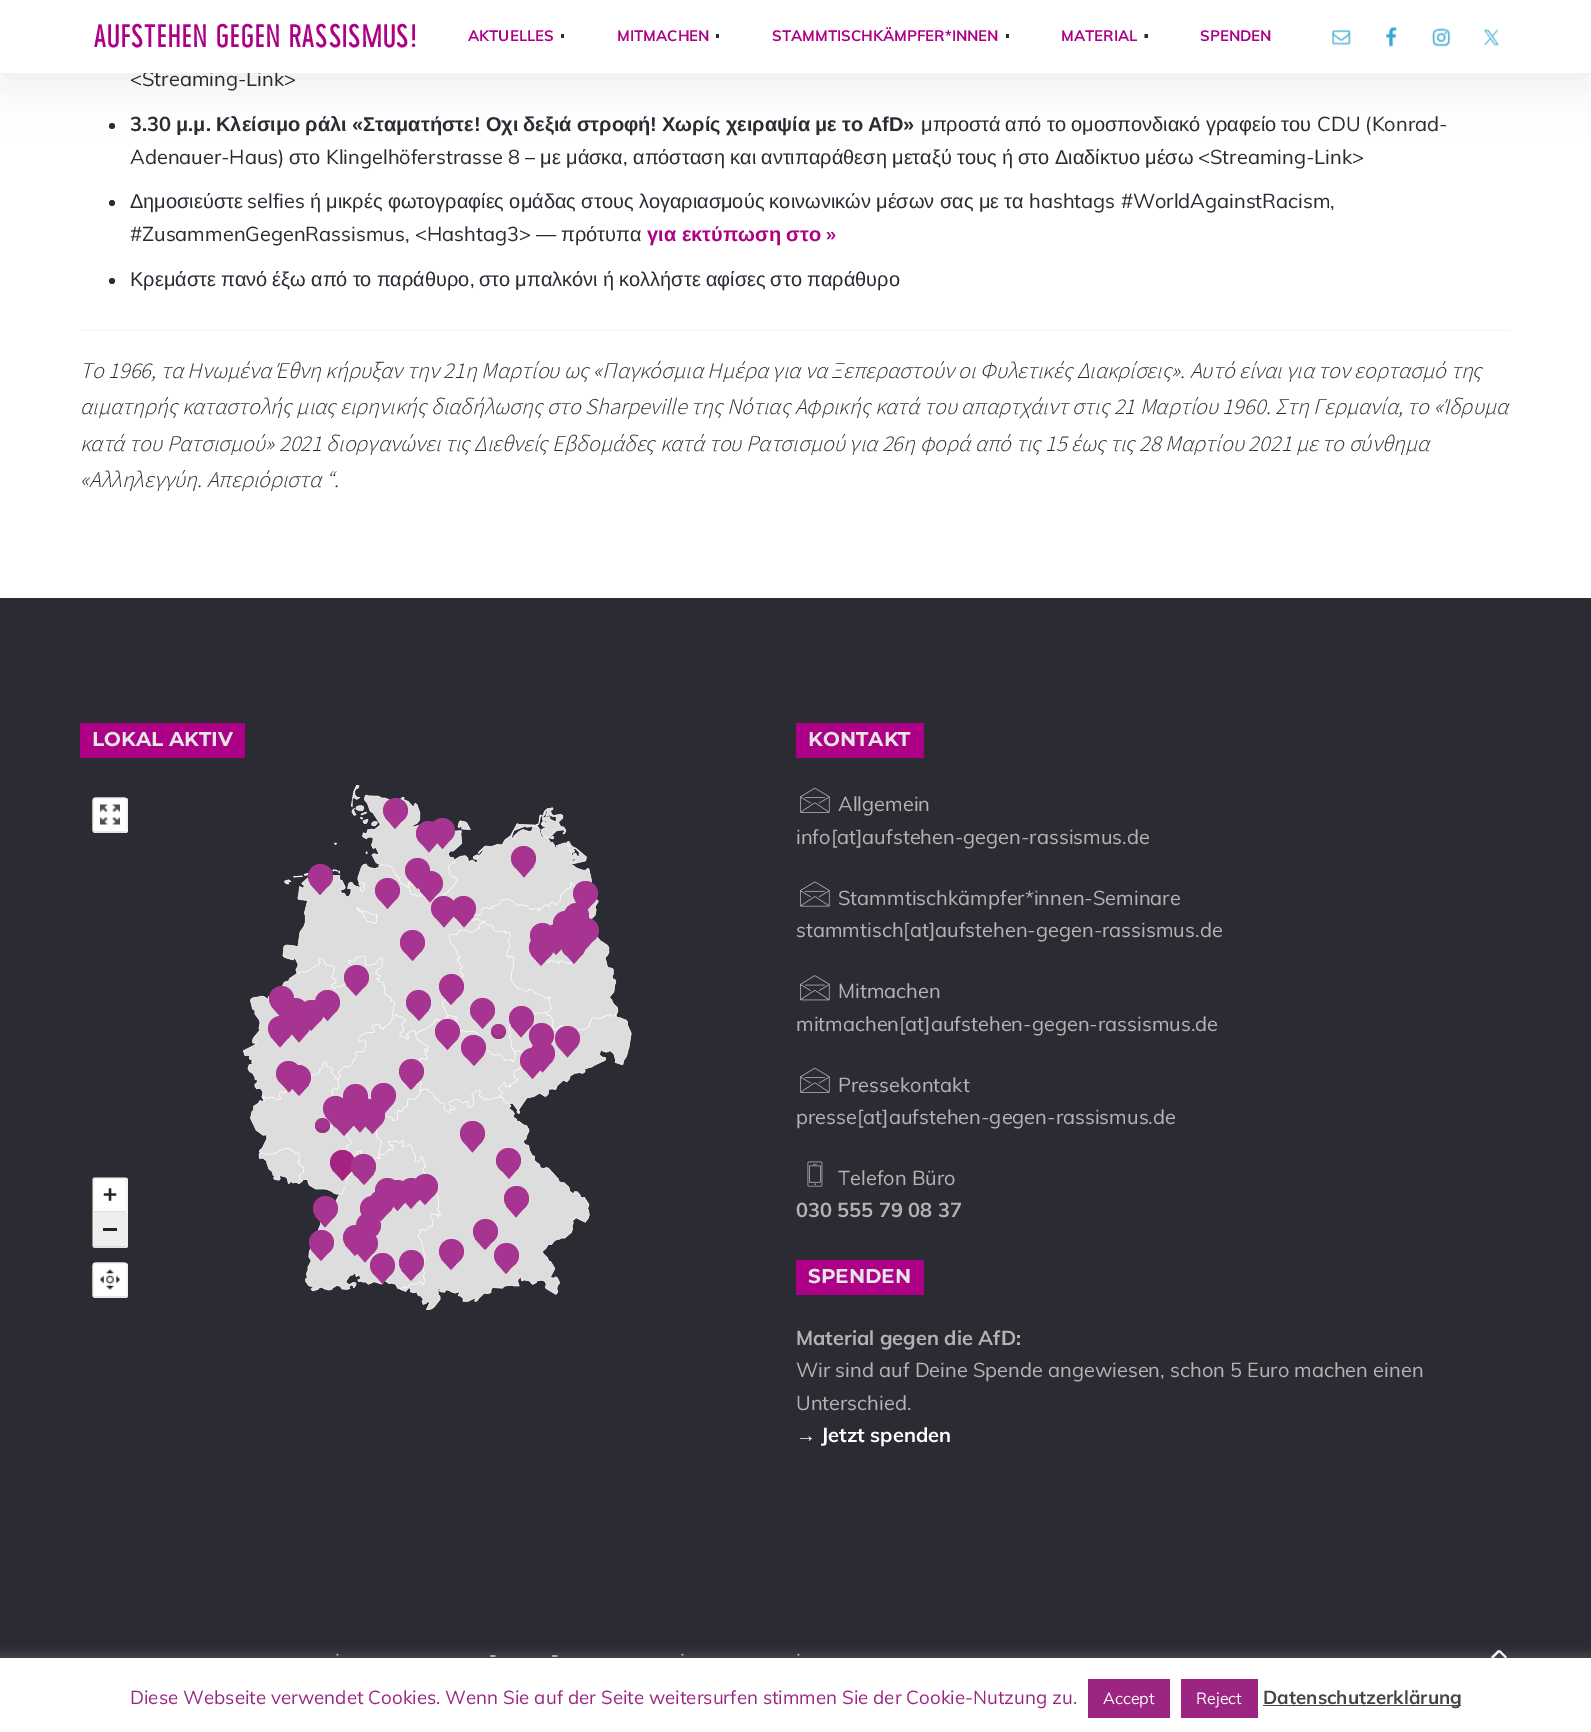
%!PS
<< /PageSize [1591 1732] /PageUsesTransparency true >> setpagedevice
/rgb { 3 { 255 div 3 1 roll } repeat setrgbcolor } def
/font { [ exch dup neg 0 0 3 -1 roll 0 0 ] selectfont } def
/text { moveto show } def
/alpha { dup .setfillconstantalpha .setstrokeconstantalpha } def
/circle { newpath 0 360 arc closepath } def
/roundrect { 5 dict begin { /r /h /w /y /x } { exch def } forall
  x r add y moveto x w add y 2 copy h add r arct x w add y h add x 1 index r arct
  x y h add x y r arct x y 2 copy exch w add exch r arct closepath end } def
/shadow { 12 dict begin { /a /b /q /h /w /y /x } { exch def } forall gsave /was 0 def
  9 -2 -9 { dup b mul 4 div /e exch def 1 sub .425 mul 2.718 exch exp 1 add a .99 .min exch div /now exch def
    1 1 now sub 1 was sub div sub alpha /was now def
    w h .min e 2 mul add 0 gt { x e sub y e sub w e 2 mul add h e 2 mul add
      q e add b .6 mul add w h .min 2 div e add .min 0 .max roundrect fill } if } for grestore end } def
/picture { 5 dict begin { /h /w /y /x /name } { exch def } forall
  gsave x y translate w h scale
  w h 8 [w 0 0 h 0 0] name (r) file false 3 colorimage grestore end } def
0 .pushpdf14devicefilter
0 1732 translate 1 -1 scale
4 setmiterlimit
255 255 255 rgb
0 0 1591 1732 rectfill
42 43 51 rgb
112 126 3 circle fill
0 0 0 rgb
0 0 1591 73 0 31 0.1 shadow
42 43 51 rgb
112 203 3 circle fill
112 281 3 circle fill
245 245 245 rgb
80 330 1431 1 rectfill
42 43 51 rgb
0 598 1591 978 rectfill
173 0 134 rgb
80 723 165 35 rectfill
255 255 255 rgb
93 798 35 35 2.5 roundrect fill
(img_05.rgb) 100 804 20 21 picture
221 221 221 rgb
1.2 setlinewidth
126.5 831.5 moveto -1.5 0.5 rlineto -30 0 rlineto -1.5 -0.5 rlineto stroke
238 238 238 rgb
93.5 831.5 moveto -1 -1.5 -0.5 -6.5 -0.5 -6.5 rcurveto 0 -20 rlineto 0 -7.5 -0.5 -7 7 -7 rcurveto 20 0 rlineto 7.5 0 7 -0.5 7 7 rcurveto 0 20 rlineto 0 0 0.5 5 -0.5 6.5 rcurveto stroke
(img_06.rgb) 243 785 389 525 picture
167 52 144 rgb
395.5 810.5 12.5 circle fill
385 817.5 moveto 20 0 rlineto -10 11.5 rlineto closepath fill
428.5 833.5 12.5 circle fill
419 841 moveto 20 0 rlineto -10 11.5 rlineto closepath fill
442.5 830.5 12.5 circle fill
432.5 837.5 moveto 20 0 rlineto -10 11.5 rlineto closepath fill
320.5 876.5 12.5 circle fill
310 884 moveto 20 0 rlineto -10 11 rlineto closepath fill
387.5 890.5 12.5 circle fill
377.5 897.5 moveto 20 0 rlineto -10 11.5 rlineto closepath fill
417.5 870.5 12.5 circle fill
407.5 877.5 moveto 20 0 rlineto -10 11.5 rlineto closepath fill
430.5 883.5 12.5 circle fill
443.5 908.5 12.5 circle fill
420 891 moveto 20 0 rlineto -10 11.5 rlineto closepath fill
434 916 moveto 20 0 rlineto -10 11.5 rlineto closepath fill
463.5 908.5 12.5 circle fill
454 916 moveto 20 0 rlineto -10 11.5 rlineto closepath fill
523.5 858.5 12.5 circle fill
514 866 moveto 20 0 rlineto -10 11.5 rlineto closepath fill
585.5 893.5 12.5 circle fill
556.5 936.5 12.5 circle fill
546 944 moveto 20 0 rlineto -10 11 rlineto closepath fill
542.5 935.5 12.5 circle fill
565.5 923.5 12.5 circle fill
575 901 moveto 20 0 rlineto -10 11.5 rlineto closepath fill
555 931 moveto 20 0 rlineto -10 11.5 rlineto closepath fill
573.5 945.5 12.5 circle fill
586.5 930.5 12.5 circle fill
576.5 915.5 12.5 circle fill
566 922.5 moveto 20 0 rlineto -10 11.5 rlineto closepath fill
576 937.5 moveto 20 0 rlineto -10 11.5 rlineto closepath fill
412.5 942.5 12.5 circle fill
402.5 950 moveto 20 0 rlineto -10 11 rlineto closepath fill
541.5 947.5 12.5 circle fill
531 955 moveto 20 0 rlineto -10 11 rlineto closepath fill
564 952.5 moveto 20 0 rlineto -10 11.5 rlineto closepath fill
288.5 1018.5 7.5 circle fill
298.5 1023.5 12.5 circle fill
295.5 1010.5 12.5 circle fill
281.5 998.5 12.5 circle fill
289 1031 moveto 20 0 rlineto -10 11.5 rlineto closepath fill
280.5 1028.5 12.5 circle fill
271 1006 moveto 20 0 rlineto -10 11.5 rlineto closepath fill
327.5 1002.5 12.5 circle fill
317.5 1010 moveto 20 0 rlineto -10 11 rlineto closepath fill
311.5 1012.5 12.5 circle fill
301 1020 moveto 20 0 rlineto -10 11 rlineto closepath fill
356.5 977.5 12.5 circle fill
346 985 moveto 20 0 rlineto -10 11 rlineto closepath fill
418.5 1002.5 12.5 circle fill
409 1010 moveto 20 0 rlineto -10 11 rlineto closepath fill
451.5 986.5 12.5 circle fill
441 994 moveto 20 0 rlineto -10 11 rlineto closepath fill
482.5 1010.5 12.5 circle fill
498.5 1031.5 7.5 circle fill
472.5 1017.5 moveto 20 0 rlineto -10 11.5 rlineto closepath fill
521.5 1018.5 12.5 circle fill
511 1026 moveto 20 0 rlineto -10 11.5 rlineto closepath fill
270 1036 moveto 20 0 rlineto -10 11.5 rlineto closepath fill
447.5 1031.5 12.5 circle fill
437.5 1039 moveto 20 0 rlineto -10 11 rlineto closepath fill
473.5 1047.5 12.5 circle fill
464 1055 moveto 20 0 rlineto -10 11 rlineto closepath fill
0.1 alpha
0 0 0 rgb
491.5 1029 moveto -0.5 1.5 -0.5 3.5 0 5.5 rcurveto 3.5 8.5 16.5 3.5 14 -5 rcurveto -0.5 9 -13.5 8.5 -14 -0.5 rcurveto closepath fill
1 alpha
167 52 144 rgb
542.5 1053.5 12.5 circle fill
541.5 1035.5 12.5 circle fill
531 1042.5 moveto 20 0 rlineto -10 11.5 rlineto closepath fill
567.5 1038.5 12.5 circle fill
557.5 1046 moveto 20 0 rlineto -10 11.5 rlineto closepath fill
532.5 1061 moveto 20 0 rlineto -10 11.5 rlineto closepath fill
288.5 1073.5 12.5 circle fill
279 1081 moveto 20 0 rlineto -10 11.5 rlineto closepath fill
411.5 1071.5 12.5 circle fill
401 1079 moveto 20 0 rlineto -10 11 rlineto closepath fill
532.5 1060.5 12.5 circle fill
522.5 1067.5 moveto 20 0 rlineto -10 11.5 rlineto closepath fill
298.5 1077.5 12.5 circle fill
289 1085 moveto 20 0 rlineto -10 11 rlineto closepath fill
355.5 1096.5 12.5 circle fill
322.5 1125.5 7.5 circle fill
343.5 1117.5 12.5 circle fill
335.5 1108.5 12.5 circle fill
0.1 alpha
0 0 0 rgb
315.5 1123.5 moveto -2.5 8.5 10.5 13.5 14 5 rcurveto 0.5 -2 0.5 -4 0 -5.5 rcurveto -0.5 9 -13.5 9.5 -14 0.5 rcurveto closepath fill
1 alpha
167 52 144 rgb
334 1125 moveto 20 0 rlineto -10 11 rlineto closepath fill
325 1116 moveto 20 0 rlineto -10 11.5 rlineto closepath fill
372.5 1115.5 12.5 circle fill
360.5 1108.5 12.5 circle fill
362.5 1122.5 moveto 20 0 rlineto -10 11.5 rlineto closepath fill
350 1121 moveto 20 0 rlineto -10 11.5 rlineto closepath fill
368.5 1111.5 12.5 circle fill
383.5 1095.5 12.5 circle fill
374 1102.5 moveto 20 0 rlineto -10 11.5 rlineto closepath fill
343.5 1111.5 12.5 circle fill
359 1119 moveto 20 0 rlineto -10 11 rlineto closepath fill
347.5 1117.5 moveto 20 0 rlineto -10 11.5 rlineto closepath fill
472.5 1133.5 12.5 circle fill
462.5 1141 moveto 20 0 rlineto -10 11.5 rlineto closepath fill
166 34 128 rgb
342.5 1162.5 12.5 circle fill
332.5 1170 moveto 20 0 rlineto -10 11 rlineto closepath fill
167 52 144 rgb
425.5 1186.5 12.5 circle fill
415 1194 moveto 20 0 rlineto -10 11 rlineto closepath fill
411.5 1190.5 12.5 circle fill
387.5 1190.5 12.5 circle fill
363.5 1166.5 12.5 circle fill
354 1174 moveto 20 0 rlineto -10 11 rlineto closepath fill
508.5 1160.5 12.5 circle fill
499 1167.5 moveto 20 0 rlineto -10 11.5 rlineto closepath fill
401 1197.5 moveto 20 0 rlineto -10 11.5 rlineto closepath fill
325.5 1208.5 12.5 circle fill
315 1216 moveto 20 0 rlineto -10 11.5 rlineto closepath fill
397.5 1192.5 12.5 circle fill
387.5 1200 moveto 20 0 rlineto -10 11 rlineto closepath fill
372.5 1208.5 12.5 circle fill
382.5 1265.5 12.5 circle fill
365.5 1243.5 12.5 circle fill
355.5 1237.5 12.5 circle fill
368.5 1225.5 12.5 circle fill
381.5 1202.5 12.5 circle fill
371 1210 moveto 20 0 rlineto -10 11 rlineto closepath fill
516.5 1198.5 12.5 circle fill
506 1206 moveto 20 0 rlineto -10 11.5 rlineto closepath fill
321.5 1242.5 12.5 circle fill
311 1250 moveto 20 0 rlineto -10 11 rlineto closepath fill
355 1251 moveto 20 0 rlineto -10 11.5 rlineto closepath fill
345 1245 moveto 20 0 rlineto -10 11 rlineto closepath fill
359 1232.5 moveto 20 0 rlineto -10 11.5 rlineto closepath fill
485.5 1231.5 12.5 circle fill
475 1239 moveto 20 0 rlineto -10 11 rlineto closepath fill
372.5 1272.5 moveto 20 0 rlineto -10 11.5 rlineto closepath fill
411.5 1262.5 12.5 circle fill
401 1270 moveto 20 0 rlineto -10 11 rlineto closepath fill
451.5 1251.5 12.5 circle fill
441 1259 moveto 20 0 rlineto -10 11 rlineto closepath fill
506.5 1255.5 12.5 circle fill
496 1262.5 moveto 20 0 rlineto -10 11.5 rlineto closepath fill
255 255 255 rgb
95.5 1178 moveto 30 0 rlineto 1.5 0 2.5 1 2.5 2.5 rcurveto 0 32.5 rlineto -35 0 rlineto 0 -32.5 rlineto 0 -1.5 1 -2.5 2.5 -2.5 rcurveto closepath fill
(img_07.rgb) 103 1188 14 13 picture
238 238 238 rgb
95 1177.5 moveto -2 0.5 rlineto 1.5 1.5 rlineto 0.5 -0.5 rlineto 30 0 rlineto 0.5 0.5 rlineto 1.5 -1.5 rlineto -2 -0.5 rlineto closepath fill
127.5 1212.5 moveto 0 -32.5 rlineto 0 -1 -0.5 -1.5 -0.5 -2 rcurveto -1.5 1.5 rlineto 1 0.5 0.5 28 0.5 31.5 rcurveto closepath fill
221 221 221 rgb
127.5 1212.5 moveto -1.5 -1.5 rlineto -32 0 rlineto -1.5 1.5 rlineto closepath fill
238 238 238 rgb
92.5 1212.5 moveto 1.5 -1.5 rlineto 0 -3.5 -0.5 -31 0.5 -31.5 rcurveto -1.5 -1.5 rlineto -0.5 2 rlineto closepath fill
93 1213 moveto 35 0 rlineto 0 32.5 rlineto 0 1.5 -1 2.5 -2.5 2.5 rcurveto -30 0 rlineto -1.5 0 -2.5 -1 -2.5 -2.5 rcurveto closepath fill
34 34 34 rgb
103 1228 14 3 rectfill
238 238 238 rgb
127.5 1212.5 moveto -1.5 0 rlineto 0 3.5 0.5 32.5 -0.5 33 rcurveto 1.5 1.5 rlineto 0.5 -2 rlineto closepath fill
221 221 221 rgb
95 1247.5 moveto 30 0 rlineto 1 0 1.5 -0.5 2 -0.5 rcurveto -1.5 -1.5 rlineto -0.5 0.5 rlineto -30 0 rlineto -0.5 -0.5 rlineto -1.5 1.5 rlineto closepath fill
238 238 238 rgb
92.5 1212.5 moveto 1.5 0 rlineto 0 3.5 -0.5 32.5 0.5 33 rcurveto -1.5 1.5 rlineto -0.5 -2 rlineto closepath fill
255 255 255 rgb
93 1263 35 35 2.5 roundrect fill
(img_08.rgb) 100 1269 20 21 picture
221 221 221 rgb
126.5 1296.5 moveto -1.5 0.5 rlineto -30 0 rlineto -1.5 -0.5 rlineto stroke
238 238 238 rgb
93.5 1296.5 moveto -1 -1.5 -0.5 -6.5 -0.5 -6.5 rcurveto 0 -20 rlineto 0 -7.5 -0.5 -7 7 -7 rcurveto 20 0 rlineto 7.5 0 7 -0.5 7 7 rcurveto 0 20 rlineto 0 0 0.5 5 -0.5 6.5 rcurveto stroke
173 0 134 rgb
796 723 128 35 rectfill
(img_09.rgb) 800 787 30 26 picture
(img_10.rgb) 800 881 30 26 picture
(img_11.rgb) 800 975 30 26 picture
(img_09.rgb) 800 1067 30 26 picture
(img_12.rgb) 807 1161 16 26 picture
796 1260 128 35 rectfill
42 43 51 rgb
0 1576 1591 82 rectfill
255 255 255 rgb
1491 1657 moveto 7.5 -7 rlineto 1.5 1.5 rlineto -7 7 rlineto closepath fill
1498.5 1651.5 moveto 1.5 -1.5 rlineto 7 7 rlineto -1.5 1.5 rlineto closepath fill
172 171 171 rgb
0 1656 1591 75 0 6 0.3 shadow
255 255 255 rgb
0 1658 1591 74 rectfill
157 37 130 rgb
1088 1679 82 39 rectfill
1181 1679 77 39 rectfill
68 68 68 rgb
1263 1705 198 1 rectfill
/Muli-Regular 20 font
42 43 51 rgb
(<Streaming-Link>) 130 86 text
255 255 255 rgb
0 0 1591 73 rectfill
/Muli-Bold 15 font
173 0 134 rgb
(SPENDEN) 1200 41 text
42 43 51 rgb
3.8 setlinewidth
1144.5 36 moveto 3.5 0 rlineto stroke
173 0 134 rgb
(MATERIAL) 1061 41 text
42 43 51 rgb
1006 36 moveto 3 0 rlineto stroke
173 0 134 rgb
(STAMMTISCHKÄMPFER*INNEN) 772 41 text
42 43 51 rgb
716 36 moveto 3 0 rlineto stroke
173 0 134 rgb
(MITMACHEN) 617 41 text
42 43 51 rgb
561 36 moveto 3 0 rlineto stroke
173 0 134 rgb
(AKTUELLES) 468 41 text
(img_04.rgb) 1484 29 16 17 picture
(img_03.rgb) 1432 28 19 19 picture
(img_02.rgb) 1386 27 11 20 picture
(img_01.rgb) 1332 30 19 15 picture
/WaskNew-Bold 34 font
(RASSISMUS!) 288 47 text
(GEGEN) 215 47 text
(AUFSTEHEN) 93 47 text
/Muli-Bold 20 font
42 43 51 rgb
(3.30) 130 131 text
/LiberationSans-Bold 20 font
(μ) 176 131 text
(μ) 193 131 text
216 131 moveto -0.5 0 32 (Κλείσιμο ράλι «Σταματήστε! Οχι δεξιά στροφή! Χωρίς χειραψία με το AfD») widthshow
/LiberationSans-Regular 20 font
(μπροστά) 921 131 text
(από) 1005 131 text
(το) 1047 131 text
(ομοσπονδιακό) 1071 131 text
(γραφείο) 1206 131 text
(του) 1281 131 text
/Muli-Regular 20 font
(CDU \(Konrad-) 1317 131 text
/Muli-Bold 20 font
(.) 188 131 text
(.) 206 131 text
/Muli-Regular 20 font
(Adenauer-Haus\)) 130 164 text
/LiberationSans-Regular 20 font
(στο) 289 164 text
/Muli-Regular 20 font
(Klingelhöferstrasse 8 –) 326 164 text
/LiberationSans-Regular 20 font
(με) 540 164 text
(μάσκα) 566 164 text
/Muli-Regular 20 font
(,) 623 164 text
/LiberationSans-Regular 20 font
(απόσταση) 633 164 text
(και) 730 164 text
(αντιπαράθεση) 761 164 text
(μεταξύ) 892 164 text
(τους) 957 164 text
(ή) 1002 164 text
(στο) 1018 164 text
(Διαδίκτυο) 1055 164 text
(μέσω) 1145 164 text
/Muli-Regular 20 font
(<Streaming-Link>) 1198 164 text
/LiberationSans-Regular 20 font
(Δημοσιεύστε) 130 208 text
/Muli-Regular 20 font
(selfies) 247 208 text
/LiberationSans-Regular 20 font
310 208 moveto -0.25 0 32 (ή μικρές φωτογραφίες ομάδας στους λογαριασμούς κοινωνικών μέσων σας με τα) widthshow
/Muli-Regular 20 font
(hashtags #WorldAgainstRacism,) 1029 208 text
(#ZusammenGegenRassismus, <Hashtag3> —) 130 241 text
/LiberationSans-Regular 20 font
(πρότυπα) 561 241 text
/LiberationSans-Bold 20 font
173 0 134 rgb
(για εκτύπωση στο) 647 241 text
/Muli-Bold 20 font
(») 826 241 text
/LiberationSans-Regular 20 font
42 43 51 rgb
130 286 moveto -0.5 0 32 (Κρεμάστε πανό έξω από το παράθυρο) widthshow
479 286 moveto -0.5 0 32 (στο μπαλκόνι ή κολλήστε αφίσες στο παράθυρο) widthshow
/Muli-Regular 20 font
(,) 470 286 text
/SourceSansPro-LightItalic 22.5 font
(Το 1966, τα Ηνωμένα Έθνη κήρυξαν την 21η Μαρτίου ως «Παγκόσμια Ημέρα για να Ξεπεραστούν οι Φυλετικές Διακρίσεις». Αυτό είναι για τον εορτασμό της) 80 378 text
(αιματηρής καταστολής μιας ειρηνικής διαδήλωσης στο Sharpeville της Νότιας Αφρικής κατά του απαρτχάιντ στις 21 Μαρτίου 1960. Στη Γερμανία, το «Ίδρυμα) 80 414 text
(κατά του Ρατσισμού» 2021 διοργανώνει τις Διεθνείς Εβδομάδες κατά του Ρατσισμού για 26η φορά από τις 15 έως τις 28 Μαρτίου 2021 με το σύνθημα) 80 451 text
(«Αλληλεγγύη. Απεριόριστα “.) 80 487 text
/Montserrat-Thin 20 font
230 230 230 rgb
(LOKAL AKTIV) 92 746 text
(KONTAKT) 808 746 text
/Muli-Regular 20 font
179 179 179 rgb
(Allgemein) 838 811 text
(info[at]aufstehen-gegen-rassismus.de) 796 844 text
(Stammtischkämpfer*innen-Seminare) 838 905 text
(stammtisch[at]aufstehen-gegen-rassismus.de) 796 937 text
(Mitmachen) 838 998 text
(mitmachen[at]aufstehen-gegen-rassismus.de) 796 1031 text
(Pressekontakt) 838 1092 text
(presse[at]aufstehen-gegen-rassismus.de) 796 1124 text
(Telefon Büro) 838 1185 text
/Muli-Bold 20 font
(030 555 79 08 37) 796 1217 text
/Montserrat-Thin 20 font
230 230 230 rgb
(SPENDEN) 808 1283 text
/Muli-Bold 20 font
179 179 179 rgb
(Material gegen die AfD:) 796 1345 text
/Muli-Regular 20 font
(Wir sind auf Deine Spende angewiesen, schon 5 Euro machen einen) 796 1377 text
(Unterschied.) 796 1410 text
/LiberationSans-Bold 20 font
255 255 255 rgb
(→) 796 1442 text
/Muli-Bold 20 font
(Jetzt spenden) 821 1442 text
/SourceSansPro-Light 22.5 font
179 179 179 rgb
(·) 335 1662 text
/SourceSansPro-Bold 22.5 font
204 204 204 rgb
(-) 489 1662 text
(-) 551 1662 text
/SourceSansPro-Light 22.5 font
179 179 179 rgb
(·) 680 1662 text
(·) 796 1662 text
/Muli-Regular 18.75 font
157 37 130 rgb
(Diese Webseite verwendet Cookies. Wenn Sie auf der Seite weitersurfen stimmen Sie der Cookie-Nutzung zu.) 130 1704 text
/Muli-Regular 16 font
255 255 255 rgb
(Accept) 1103 1704 text
(Reject) 1196 1704 text
/Muli-Bold 18.75 font
68 68 68 rgb
(Datenschutzerklärung) 1263 1704 text
.poppdf14devicefilter showpage
